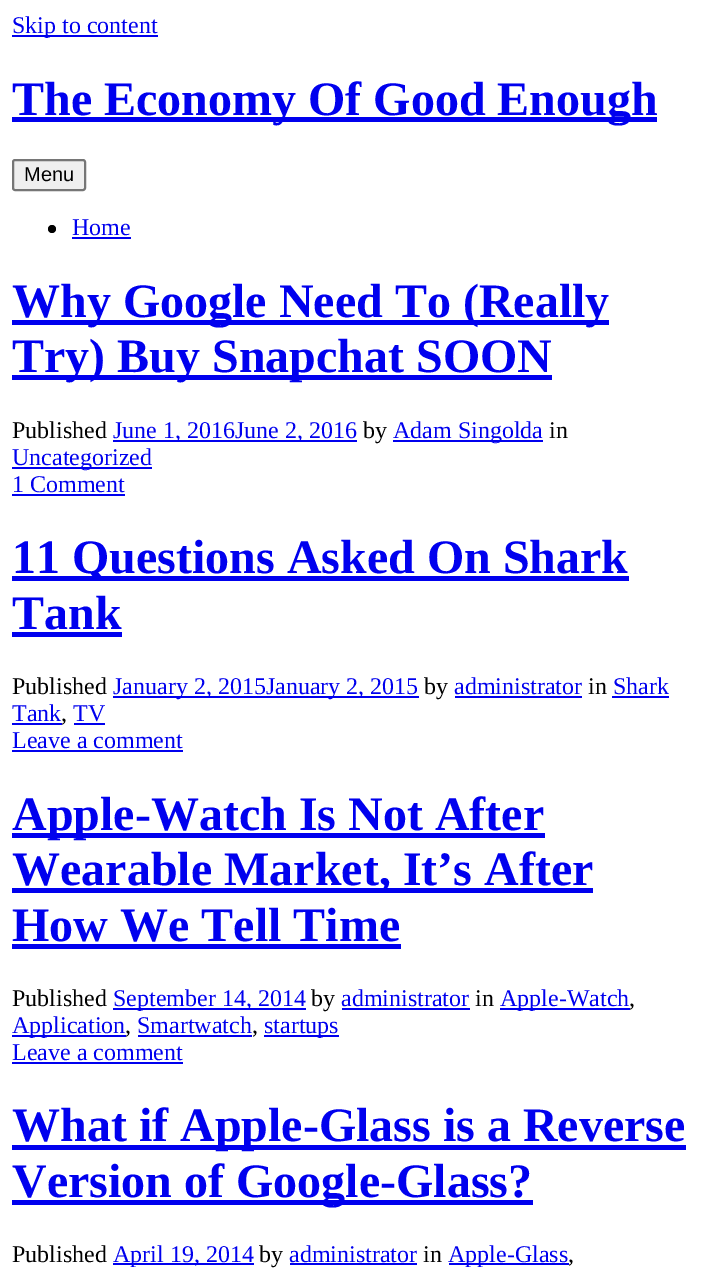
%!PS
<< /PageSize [709 1280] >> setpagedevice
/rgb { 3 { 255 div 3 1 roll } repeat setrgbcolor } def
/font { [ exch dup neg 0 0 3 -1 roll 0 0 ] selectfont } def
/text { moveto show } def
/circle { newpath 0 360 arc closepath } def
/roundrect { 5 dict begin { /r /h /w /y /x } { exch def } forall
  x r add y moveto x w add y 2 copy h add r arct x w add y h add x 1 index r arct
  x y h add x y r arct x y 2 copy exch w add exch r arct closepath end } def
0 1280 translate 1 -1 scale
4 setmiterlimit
255 255 255 rgb
0 0 709 1280 rectfill
0 0 238 rgb
12 35 146 2 rectfill
12 117 645 5 rectfill
239 239 239 rgb
13 160 72 30 2 roundrect gsave fill grestore
118 118 118 rgb
2 setlinewidth
stroke
0 0 0 rgb
52 229 4 circle fill
0 0 238 rgb
72 237 59 2 rectfill
12 320 597 5 rectfill
12 375 540 5 rectfill
113 440 244 2 rectfill
393 440 150 2 rectfill
12 467 140 2 rectfill
12 494 113 2 rectfill
12 576 617 5 rectfill
12 632 110 5 rectfill
113 696 306 2 rectfill
455 696 127 2 rectfill
612 696 57 2 rectfill
12 723 50 2 rectfill
74 723 31 2 rectfill
12 750 171 2 rectfill
12 833 533 5 rectfill
12 888 581 5 rectfill
12 944 389 5 rectfill
113 1008 193 2 rectfill
342 1008 128 2 rectfill
500 1008 130 2 rectfill
12 1035 114 2 rectfill
138 1035 114 2 rectfill
264 1035 75 2 rectfill
12 1062 171 2 rectfill
12 1145 674 5 rectfill
12 1200 521 5 rectfill
113 1263 141 2 rectfill
290 1263 127 2 rectfill
449 1263 120 2 rectfill
/LiberationSerif-Regular 24 font
(Skip to content) 12 33 text
/LiberationSerif-Bold 48 font
(The Economy Of Good Enough) 12 115 text
/LiberationSans-Regular 20 font
0 0 0 rgb
(Menu) 24 181 text
/LiberationSerif-Regular 24 font
0 0 238 rgb
(Home) 72 235 text
/LiberationSerif-Bold 48 font
(Why Google Need To \(Really) 12 317 text
(Try\) Buy Snapchat SOON) 12 372 text
/LiberationSerif-Regular 24 font
0 0 0 rgb
(Published) 12 438 text
0 0 238 rgb
(June 1, 2016June 2, 2016) 113 438 text
0 0 0 rgb
(by) 363 438 text
0 0 238 rgb
(Adam Singolda) 393 438 text
0 0 0 rgb
(in) 549 438 text
0 0 238 rgb
(Uncategorized) 12 465 text
(1 Comment) 12 492 text
/LiberationSerif-Bold 48 font
(11 Questions Asked On Shark) 12 573 text
(Tank) 12 629 text
/LiberationSerif-Regular 24 font
0 0 0 rgb
(Published) 12 694 text
0 0 238 rgb
(January 2, 2015January 2, 2015) 113 694 text
0 0 0 rgb
(by) 424 694 text
0 0 238 rgb
(administrator) 454 694 text
0 0 0 rgb
(in) 588 694 text
0 0 238 rgb
(Shark) 613 694 text
(Tank) 12 721 text
0 0 0 rgb
(,) 61 721 text
0 0 238 rgb
(TV) 73 721 text
(Leave a comment) 12 748 text
/LiberationSerif-Bold 48 font
(Apple-Watch Is Not After) 12 830 text
(Wearable Market, It’s After) 12 885 text
(How We Tell Time) 12 941 text
/LiberationSerif-Regular 24 font
0 0 0 rgb
(Published) 12 1006 text
0 0 238 rgb
(September 14, 2014) 113 1006 text
0 0 0 rgb
(by) 311 1006 text
0 0 238 rgb
(administrator) 341 1006 text
0 0 0 rgb
(in) 475 1006 text
0 0 238 rgb
(Apple-Watch) 500 1006 text
0 0 0 rgb
(,) 629 1006 text
0 0 238 rgb
(Application) 12 1033 text
0 0 0 rgb
(,) 125 1033 text
0 0 238 rgb
(Smartwatch) 137 1033 text
0 0 0 rgb
(,) 252 1033 text
0 0 238 rgb
(startups) 264 1033 text
(Leave a comment) 12 1060 text
/LiberationSerif-Bold 48 font
(What if Apple-Glass is a Reverse) 12 1141 text
(Version of Google-Glass?) 12 1197 text
/LiberationSerif-Regular 24 font
0 0 0 rgb
(Published) 12 1262 text
0 0 238 rgb
(April 19, 2014) 113 1262 text
0 0 0 rgb
(by) 259 1262 text
0 0 238 rgb
(administrator) 289 1262 text
0 0 0 rgb
(in) 423 1262 text
0 0 238 rgb
(Apple-Glass) 448 1262 text
0 0 0 rgb
(,) 568 1262 text
showpage
